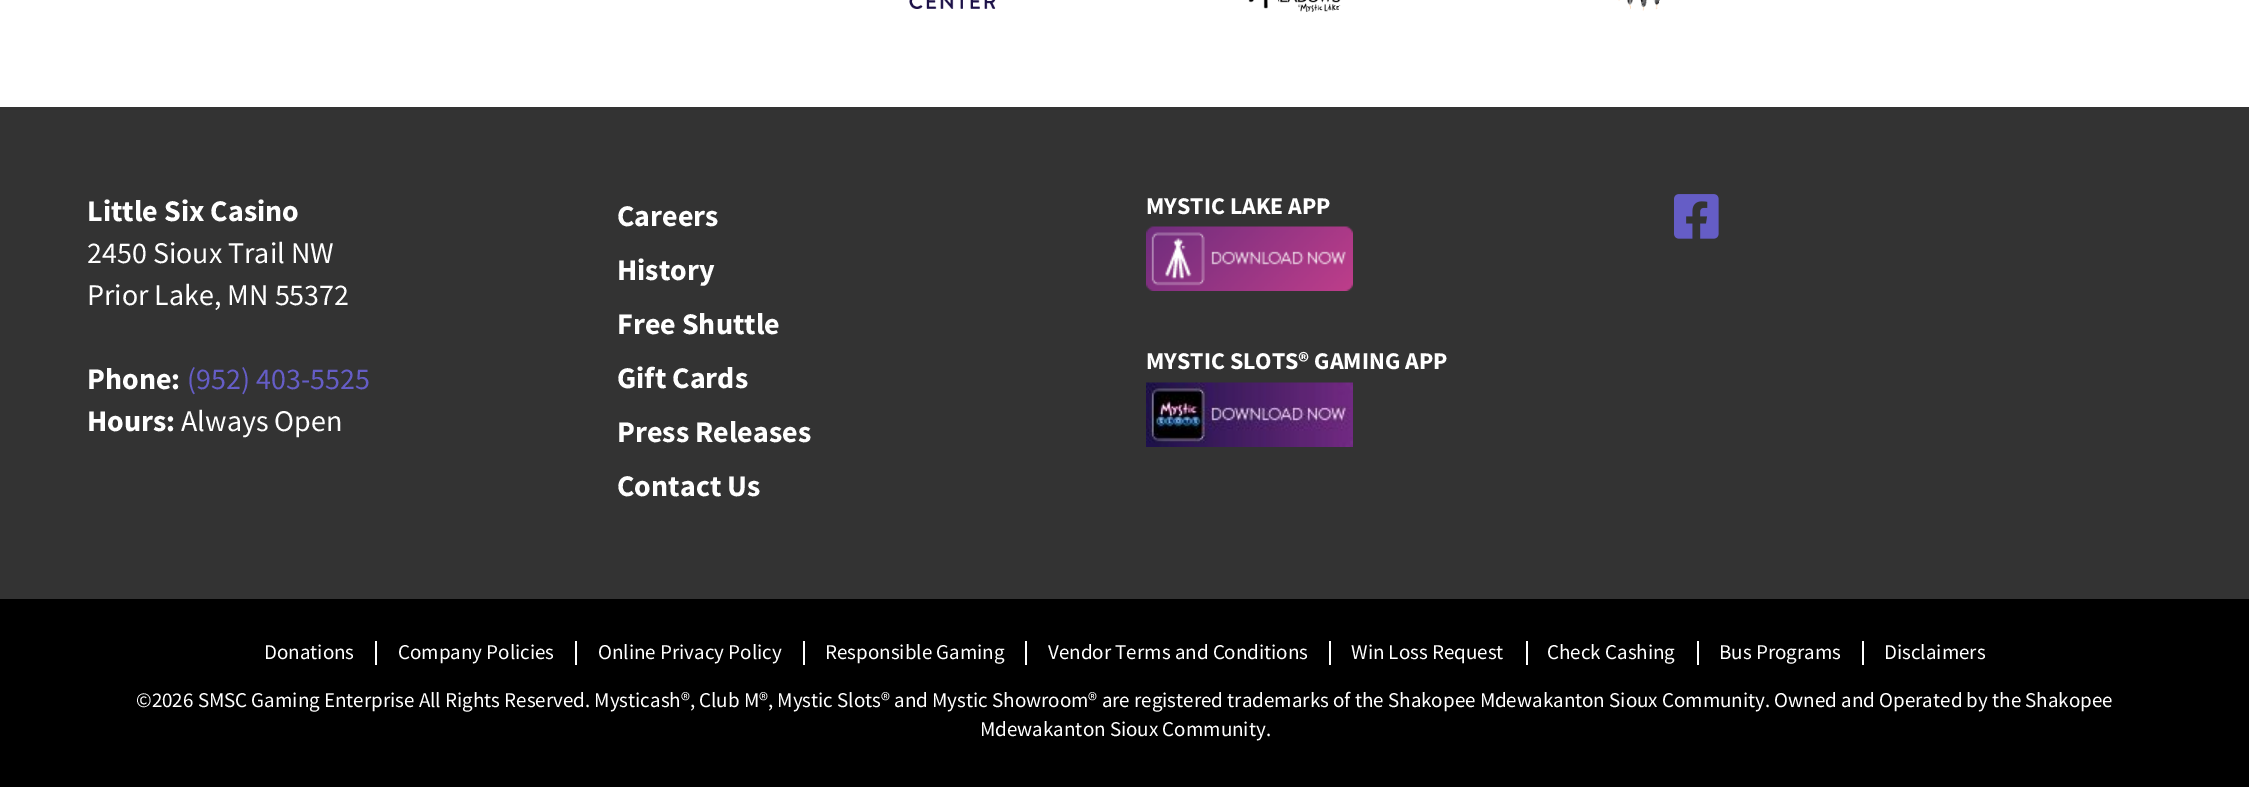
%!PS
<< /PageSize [2249 787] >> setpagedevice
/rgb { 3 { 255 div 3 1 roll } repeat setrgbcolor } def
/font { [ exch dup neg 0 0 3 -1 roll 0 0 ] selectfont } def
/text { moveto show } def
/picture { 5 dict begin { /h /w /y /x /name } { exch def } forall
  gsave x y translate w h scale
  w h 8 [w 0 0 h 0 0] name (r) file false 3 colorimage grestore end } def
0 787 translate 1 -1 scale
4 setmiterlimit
255 255 255 rgb
0 0 2249 787 rectfill
(img_01.rgb) 909 0 87 9 picture
(img_02.rgb) 1248 0 93 12 picture
(img_03.rgb) 1618 0 42 11 picture
51 51 51 rgb
0 107 2249 492 rectfill
(img_04.rgb) 1146 226 207 65 picture
(img_05.rgb) 1146 382 207 65 picture
(img_06.rgb) 1674 194 45 45 picture
0 0 0 rgb
0 599 2249 188 rectfill
255 255 255 rgb
375 641 2 24 rectfill
575 641 2 24 rectfill
803 641 2 24 rectfill
1025 641 2 24 rectfill
1329 641 2 24 rectfill
1526 641 2 24 rectfill
1697 641 2 24 rectfill
1862 641 2 24 rectfill
/SourceSansPro-Bold 30 font
(Little Six Casino) 87 221 text
/SourceSansPro-Regular 30 font
(2450 Sioux Trail NW) 87 263 text
(Prior Lake, MN 55372) 87 305 text
/SourceSansPro-Bold 30 font
(Phone:) 87 389 text
/SourceSansPro-Regular 30 font
101 93 198 rgb
(\(952\) 403-5525) 187 389 text
/SourceSansPro-Bold 30 font
255 255 255 rgb
(Hours:) 87 431 text
/SourceSansPro-Regular 30 font
(Always Open) 181 431 text
/SourceSansPro-Bold 30 font
(Careers) 617 226 text
(History) 617 280 text
(Free Shuttle) 617 334 text
(Gift Cards) 617 388 text
(Press Releases) 617 442 text
(Contact Us) 617 496 text
/SourceSansPro-Bold 24 font
(MYSTIC LAKE APP) 1146 214 text
(MYSTIC SLOTS® GAMING APP) 1146 369 text
/SourceSansPro-Regular 21 font
(Donations) 264 659 text
(Company Policies) 398 659 text
(Online Privacy Policy) 598 659 text
(Responsible Gaming) 825 659 text
(Vendor Terms and Conditions) 1048 659 text
(Win Loss Request) 1351 659 text
(Check Cashing) 1547 659 text
(Bus Programs) 1719 659 text
(Disclaimers) 1884 659 text
(©2026 SMSC Gaming Enterprise All Rights Reserved. Mysticash®, Club M®, Mystic Slots® and Mystic Showroom® are registered trademarks of the Shakopee Mdewakanton Sioux Community. Owned and Operated by the Shakopee) 136 707 text
(Mdewakanton Sioux Community.) 980 736 text
showpage
